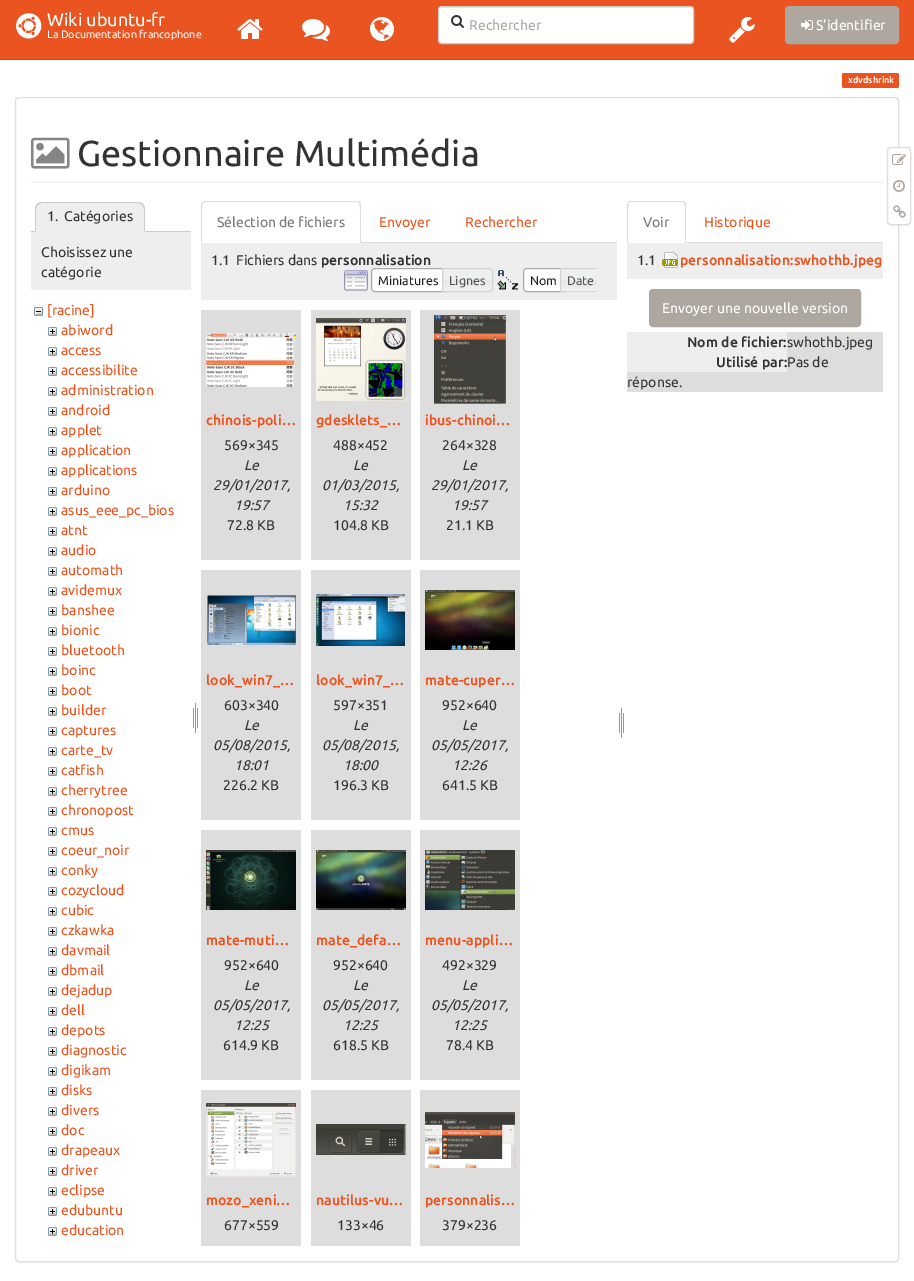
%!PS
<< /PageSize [914 1281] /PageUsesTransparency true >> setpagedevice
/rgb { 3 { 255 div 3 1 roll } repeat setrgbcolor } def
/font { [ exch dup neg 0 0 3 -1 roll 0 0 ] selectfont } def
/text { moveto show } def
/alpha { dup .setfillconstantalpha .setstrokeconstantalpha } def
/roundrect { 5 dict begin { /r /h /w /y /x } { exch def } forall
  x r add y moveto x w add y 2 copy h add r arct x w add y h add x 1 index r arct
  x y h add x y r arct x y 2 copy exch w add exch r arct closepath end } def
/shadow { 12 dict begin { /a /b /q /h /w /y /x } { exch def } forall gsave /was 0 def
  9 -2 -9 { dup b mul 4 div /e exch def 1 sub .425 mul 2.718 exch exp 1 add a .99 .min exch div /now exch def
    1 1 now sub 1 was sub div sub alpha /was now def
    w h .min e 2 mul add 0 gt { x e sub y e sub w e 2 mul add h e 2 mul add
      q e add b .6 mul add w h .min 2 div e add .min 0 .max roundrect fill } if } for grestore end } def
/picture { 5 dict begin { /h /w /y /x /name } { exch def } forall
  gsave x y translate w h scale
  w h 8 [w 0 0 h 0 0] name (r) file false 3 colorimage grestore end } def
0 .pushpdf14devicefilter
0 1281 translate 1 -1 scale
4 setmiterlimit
255 255 255 rgb
0 0 914 1281 rectfill
233 84 32 rgb
0 0 914 59 rectfill
211 70 21 rgb
0 59 914 1 rectfill
(img_01.rgb) 16 13 26 26 picture
(img_02.rgb) 237 19 26 20 picture
(img_03.rgb) 302 19 28 22 picture
(img_04.rgb) 370 17 24 24 picture
255 255 255 rgb
438 6 256 38 4 roundrect fill
236 236 236 rgb
442 8 moveto 249 0 rlineto 2 1 rlineto 0 2 rlineto 0 -2 -1 -4 -3 -4 rcurveto -248 0 rlineto -2 0 -3 2 -3 4 rcurveto 0 -2 1 -3 3 -3 rcurveto closepath fill
204 204 204 rgb
438.5 6.5 255 37 3.5 roundrect stroke
(img_05.rgb) 451 15 13 13 picture
(img_06.rgb) 729 17 26 26 picture
174 167 159 rgb
785.5 6.5 113 37 3.5 roundrect gsave fill grestore
stroke
(img_07.rgb) 801 20 12 10 picture
233 84 32 rgb
842 73 57 15 2 roundrect fill
0 0 0 rgb
15 98 884 1165 4 0.5 0.05 shadow
255 255 255 rgb
15.5 97.5 883 1164 3.5 roundrect gsave fill grestore
221 221 221 rgb
stroke
238 238 238 rgb
31 182 852 1 rectfill
(img_08.rgb) 31 137 39 32 picture
204 204 204 rgb
31 231 160 1 rectfill
238 238 238 rgb
42 202 moveto 96 0 rlineto 4 0 7 3 7 7 rcurveto 0 23 rlineto -110 0 rlineto 0 -23 rlineto 0 -4 3 -7 7 -7 rcurveto closepath fill
204 204 204 rgb
42 202 moveto -2 0 -4 1 -5 2 rcurveto 1 1 rlineto 3 -2 rlineto 98 0 rlineto 3 2 rlineto 1 -1 rlineto -1 -1 -3 -2 -5 -2 rcurveto closepath fill
145 232 moveto 0 -23 rlineto 0 -2 -1 -4 -2 -5 rcurveto -1 1 rlineto 1 1 2 2.5 2 4 rcurveto 0 22 rlineto closepath fill
238 238 238 rgb
145 232 moveto -1 -1 rlineto -108 0 rlineto -1 1 rlineto closepath fill
204 204 204 rgb
35 232 moveto 1 -1 rlineto 0 -22 rlineto 0 -1.5 1 -3 2 -4 rcurveto -1 -1 rlineto -1 1 -2 3 -2 5 rcurveto closepath fill
238 238 238 rgb
31 232 160 58 rectfill
(img_09.rgb) 34 307 9 9 picture
(img_10.rgb) 48 327 9 9 picture
(img_10.rgb) 48 347 9 9 picture
(img_10.rgb) 48 367 9 9 picture
(img_10.rgb) 48 387 9 9 picture
(img_10.rgb) 48 407 9 9 picture
(img_10.rgb) 48 427 9 9 picture
(img_10.rgb) 48 447 9 9 picture
(img_10.rgb) 48 467 9 9 picture
(img_10.rgb) 48 487 9 9 picture
(img_10.rgb) 48 507 9 9 picture
(img_10.rgb) 48 527 9 9 picture
(img_10.rgb) 48 547 9 9 picture
(img_10.rgb) 48 567 9 9 picture
(img_10.rgb) 48 587 9 9 picture
(img_10.rgb) 48 607 9 9 picture
(img_10.rgb) 48 627 9 9 picture
(img_10.rgb) 48 647 9 9 picture
(img_10.rgb) 48 667 9 9 picture
(img_10.rgb) 48 687 9 9 picture
(img_10.rgb) 48 707 9 9 picture
(img_10.rgb) 48 727 9 9 picture
(img_10.rgb) 48 747 9 9 picture
(img_10.rgb) 48 767 9 9 picture
(img_10.rgb) 48 787 9 9 picture
(img_10.rgb) 48 807 9 9 picture
(img_10.rgb) 48 827 9 9 picture
(img_10.rgb) 48 847 9 9 picture
(img_10.rgb) 48 867 9 9 picture
(img_10.rgb) 48 887 9 9 picture
(img_10.rgb) 48 907 9 9 picture
(img_10.rgb) 48 927 9 9 picture
(img_10.rgb) 48 947 9 9 picture
(img_10.rgb) 48 967 9 9 picture
(img_10.rgb) 48 987 9 9 picture
(img_10.rgb) 48 1007 9 9 picture
(img_10.rgb) 48 1027 9 9 picture
(img_10.rgb) 48 1047 9 9 picture
(img_10.rgb) 48 1067 9 9 picture
(img_10.rgb) 48 1087 9 9 picture
(img_10.rgb) 48 1107 9 9 picture
(img_10.rgb) 48 1127 9 9 picture
(img_10.rgb) 48 1147 9 9 picture
(img_10.rgb) 48 1167 9 9 picture
(img_10.rgb) 48 1187 9 9 picture
(img_10.rgb) 48 1207 9 9 picture
(img_10.rgb) 48 1227 9 9 picture
(img_11.rgb) 193 702 5 31 picture
221 221 221 rgb
361 242 256 1 rectfill
205 201 moveto -3 1 rlineto 1 1 rlineto 2 -1 rlineto 152 0 rlineto 2 1 rlineto 1 -1 rlineto -3 -1 rlineto closepath fill
361 243 moveto 0 -38 rlineto 0 -1 -1 -2 -1 -3 rcurveto -1 1 rlineto 2 2 1 34 1 39 rcurveto closepath fill
201 243 moveto 1 -1 rlineto 0 -5 -1 -37 1 -39 rcurveto -1 -1 rlineto -1 3 rlineto closepath fill
238 238 238 rgb
201 243 416 57 rectfill
(img_12.rgb) 344 270 24 22 picture
255 255 255 rgb
371 268 71 24 rectfill
170 170 170 rgb
375 268.5 moveto 71.5 0 rlineto 0 23 rlineto -71.5 0 rlineto -2 0 -3.5 -1.5 -3.5 -3.5 rcurveto 0 -16 rlineto 0 -2 1.5 -3.5 3.5 -3.5 rcurveto closepath stroke
(img_13.rgb) 443 268 50 24 picture
211 211 211 rgb
442.5 268.5 moveto 46.5 0 rlineto 2 0 3.5 1.5 3.5 3.5 rcurveto 0 16 rlineto 0 2 -1.5 3.5 -3.5 3.5 rcurveto -46.5 0 rlineto closepath stroke
(img_14.rgb) 497 270 21 20 picture
255 255 255 rgb
523 268 37 24 rectfill
170 170 170 rgb
527 268.5 moveto 37.5 0 rlineto 0 23 rlineto -37.5 0 rlineto -2 0 -3.5 -1.5 -3.5 -3.5 rcurveto 0 -16 rlineto 0 -2 1.5 -3.5 3.5 -3.5 rcurveto closepath stroke
(img_15.rgb) 561 269 36 22 picture
gsave
336 268 261 24 rectclip
211 211 211 rgb
560.5 268.5 moveto 37.5 0 rlineto 2 0 3.5 1.5 3.5 3.5 rcurveto 0 16 rlineto 0 2 -1.5 3.5 -3.5 3.5 rcurveto -37.5 0 rlineto closepath stroke
grestore
221 221 221 rgb
201 310 100 250 rectfill
(img_16.rgb) 206 333 90 54 picture
311 310 100 250 rectfill
(img_17.rgb) 316 318 90 83 picture
420 310 100 250 rectfill
(img_18.rgb) 434 315 72 89 picture
201 570 100 250 rectfill
(img_19.rgb) 207 595 89 50 picture
311 570 100 250 rectfill
(img_20.rgb) 316 594 89 52 picture
420 570 100 250 rectfill
(img_21.rgb) 425 590 90 60 picture
201 830 100 250 rectfill
(img_22.rgb) 206 850 90 60 picture
311 830 100 250 rectfill
(img_23.rgb) 316 850 90 60 picture
420 830 100 250 rectfill
(img_24.rgb) 425 850 90 60 picture
201 1090 100 156 rectfill
(img_25.rgb) 206 1103 90 74 picture
311 1090 100 156 rectfill
(img_26.rgb) 316 1124 90 31 picture
420 1090 100 156 rectfill
(img_27.rgb) 425 1112 90 56 picture
(img_11.rgb) 619 707 5 31 picture
686 242 197 1 rectfill
631 201 moveto -3 1 rlineto 1 1 rlineto 1 -1 rlineto 53 0 rlineto 1 1 rlineto 1 -1 rlineto -3 -1 rlineto closepath fill
686 243 moveto 0 -38 rlineto 0 -1 0 -2 -1 -3 rcurveto -1 1 rlineto 2 2 1 34 1 39 rcurveto closepath 627 243 moveto 1 -1 rlineto 0 -5 -1 -37 1 -39 rcurveto -1 -1 rlineto -1 3 rlineto closepath fill
238 238 238 rgb
627 243 256 36 rectfill
(img_28.rgb) 662 252 16 16 picture
174 167 159 rgb
649.5 289.5 211 37 3.5 roundrect gsave fill grestore
stroke
221 221 221 rgb
627 352 256 40 rectfill
238 238 238 rgb
627 332 160 40 rectfill
221 221 221 rgb
787 332 96 20 rectfill
0 0 0 rgb
887 148 24 78 4 0.5 0.05 shadow
255 255 255 rgb
887.5 147.5 23 77 3.5 roundrect gsave fill grestore
221 221 221 rgb
stroke
(img_29.rgb) 892 154 14 11 picture
(img_30.rgb) 893 180 12 12 picture
(img_31.rgb) 893 205 13 13 picture
/Ubuntu-Regular 18 font
255 255 255 rgb
(Wiki ubuntu-fr) 47 26 text
/Ubuntu-Regular 10.75 font
(La Documentation francophone) 47 38 text
/Ubuntu-Regular 14 font
174 167 159 rgb
(Rechercher) 469 30 text
255 255 255 rgb
(S'identifier) 816 30 text
/Ubuntu-Bold 9 font
(xdvdshrink) 848 83 text
/Ubuntu-Regular 36 font
51 51 51 rgb
(Gestionnaire Multimédia) 77 166 text
/Ubuntu-Regular 14 font
(1.) 47 221 text
(Catégories) 64 221 text
(Choisissez une) 41 257 text
(catégorie) 41 277 text
233 84 32 rgb
([racine]) 47 315 text
(abiword) 61 335 text
(access) 61 355 text
(accessibilite) 61 375 text
(administration) 61 395 text
(android) 61 415 text
(applet) 61 435 text
(application) 61 455 text
(applications) 61 475 text
(arduino) 61 495 text
(asus_eee_pc_bios) 61 515 text
(atnt) 61 535 text
(audio) 61 555 text
(automath) 61 575 text
(avidemux) 61 595 text
(banshee) 61 615 text
(bionic) 61 635 text
(bluetooth) 61 655 text
(boinc) 61 675 text
(boot) 61 695 text
(builder) 61 715 text
(captures) 61 735 text
(carte_tv) 61 755 text
(catfish) 61 775 text
(cherrytree) 61 795 text
(chronopost) 61 815 text
(cmus) 61 835 text
(coeur_noir) 61 855 text
(conky) 61 875 text
(cozycloud) 61 895 text
(cubic) 61 915 text
(czkawka) 61 935 text
(davmail) 61 955 text
(dbmail) 61 975 text
(dejadup) 61 995 text
(dell) 61 1015 text
(depots) 61 1035 text
(diagnostic) 61 1055 text
(digikam) 61 1075 text
(disks) 61 1095 text
(divers) 61 1115 text
(doc) 61 1135 text
(drapeaux) 61 1155 text
(driver) 61 1175 text
(eclipse) 61 1195 text
(edubuntu) 61 1215 text
(education) 61 1235 text
119 119 119 rgb
(Sélection de fichiers) 217 227 text
233 84 32 rgb
(Envoyer) 379 227 text
(Rechercher) 465 227 text
51 51 51 rgb
(1.1) 211 265 text
(Fichiers dans) 236 265 text
/Ubuntu-Bold 14 font
(personnalisation) 321 265 text
/Ubuntu-Regular 12.5 font
33 33 33 rgb
(Miniatures) 378 285 text
85 85 85 rgb
(Lignes) 449 285 text
33 33 33 rgb
(Nom) 530 285 text
85 85 85 rgb
(Date) 567 285 text
/Ubuntu-Bold 14 font
233 84 32 rgb
(chinois-poli…) 206 425 text
/Ubuntu-Regular 14 font
51 51 51 rgb
(569×345) 224 450 text
/Ubuntu-Italic 14 font
(Le) 244 470 text
(29/01/2017,) 213 490 text
(19:57) 234 510 text
/Ubuntu-Regular 14 font
(72.8 KB) 227 530 text
/Ubuntu-Bold 14 font
233 84 32 rgb
(gdesklets_…) 316 425 text
/Ubuntu-Regular 14 font
51 51 51 rgb
(488×452) 333 450 text
/Ubuntu-Italic 14 font
(Le) 353 470 text
(01/03/2015,) 322 490 text
(15:32) 343 510 text
/Ubuntu-Regular 14 font
(104.8 KB) 333 530 text
/Ubuntu-Bold 14 font
233 84 32 rgb
(ibus-chinoi…) 425 425 text
/Ubuntu-Regular 14 font
51 51 51 rgb
(264×328) 442 450 text
/Ubuntu-Italic 14 font
(Le) 462 470 text
(29/01/2017,) 431 490 text
(19:57) 452 510 text
/Ubuntu-Regular 14 font
(21.1 KB) 446 530 text
/Ubuntu-Bold 14 font
233 84 32 rgb
(look_win7_…) 206 685 text
/Ubuntu-Regular 14 font
51 51 51 rgb
(603×340) 224 710 text
/Ubuntu-Italic 14 font
(Le) 244 730 text
(05/08/2015,) 213 750 text
(18:01) 234 770 text
/Ubuntu-Regular 14 font
(226.2 KB) 223 790 text
/Ubuntu-Bold 14 font
233 84 32 rgb
(look_win7_…) 316 685 text
/Ubuntu-Regular 14 font
51 51 51 rgb
(597×351) 333 710 text
/Ubuntu-Italic 14 font
(Le) 353 730 text
(05/08/2015,) 322 750 text
(18:00) 343 770 text
/Ubuntu-Regular 14 font
(196.3 KB) 333 790 text
/Ubuntu-Bold 14 font
233 84 32 rgb
(mate-cuper…) 425 685 text
/Ubuntu-Regular 14 font
51 51 51 rgb
(952×640) 442 710 text
/Ubuntu-Italic 14 font
(Le) 462 730 text
(05/05/2017,) 431 750 text
(12:26) 452 770 text
/Ubuntu-Regular 14 font
(641.5 KB) 442 790 text
/Ubuntu-Bold 14 font
233 84 32 rgb
(mate-muti…) 206 945 text
/Ubuntu-Regular 14 font
51 51 51 rgb
(952×640) 224 970 text
/Ubuntu-Italic 14 font
(Le) 244 990 text
(05/05/2017,) 213 1010 text
(12:25) 234 1030 text
/Ubuntu-Regular 14 font
(614.9 KB) 223 1050 text
/Ubuntu-Bold 14 font
233 84 32 rgb
(mate_defa…) 316 945 text
/Ubuntu-Regular 14 font
51 51 51 rgb
(952×640) 333 970 text
/Ubuntu-Italic 14 font
(Le) 353 990 text
(05/05/2017,) 322 1010 text
(12:25) 343 1030 text
/Ubuntu-Regular 14 font
(618.5 KB) 333 1050 text
/Ubuntu-Bold 14 font
233 84 32 rgb
(menu-appli…) 425 945 text
/Ubuntu-Regular 14 font
51 51 51 rgb
(492×329) 442 970 text
/Ubuntu-Italic 14 font
(Le) 462 990 text
(05/05/2017,) 431 1010 text
(12:25) 452 1030 text
/Ubuntu-Regular 14 font
(78.4 KB) 446 1050 text
/Ubuntu-Bold 14 font
233 84 32 rgb
(mozo_xeni…) 206 1205 text
/Ubuntu-Regular 14 font
51 51 51 rgb
(677×559) 224 1230 text
/Ubuntu-Bold 14 font
233 84 32 rgb
(nautilus-vu…) 316 1205 text
/Ubuntu-Regular 14 font
51 51 51 rgb
(133×46) 337 1230 text
/Ubuntu-Bold 14 font
233 84 32 rgb
(personnalis…) 425 1205 text
/Ubuntu-Regular 14 font
51 51 51 rgb
(379×236) 442 1230 text
119 119 119 rgb
(Voir) 643 227 text
233 84 32 rgb
(Historique) 704 227 text
51 51 51 rgb
(1.1) 637 265 text
/Ubuntu-Bold 14 font
233 84 32 rgb
(personnalisation:swhothb.jpeg) 680 265 text
/Ubuntu-Regular 14 font
255 255 255 rgb
(Envoyer une nouvelle version) 662 313 text
/Ubuntu-Bold 14 font
51 51 51 rgb
(Nom de fichier:) 687 347 text
/Ubuntu-Regular 14 font
(swhothb.jpeg) 787 347 text
/Ubuntu-Bold 14 font
(Utilisé par:) 716 367 text
/Ubuntu-Regular 14 font
(Pas de) 787 367 text
(réponse.) 627 387 text
.poppdf14devicefilter showpage
